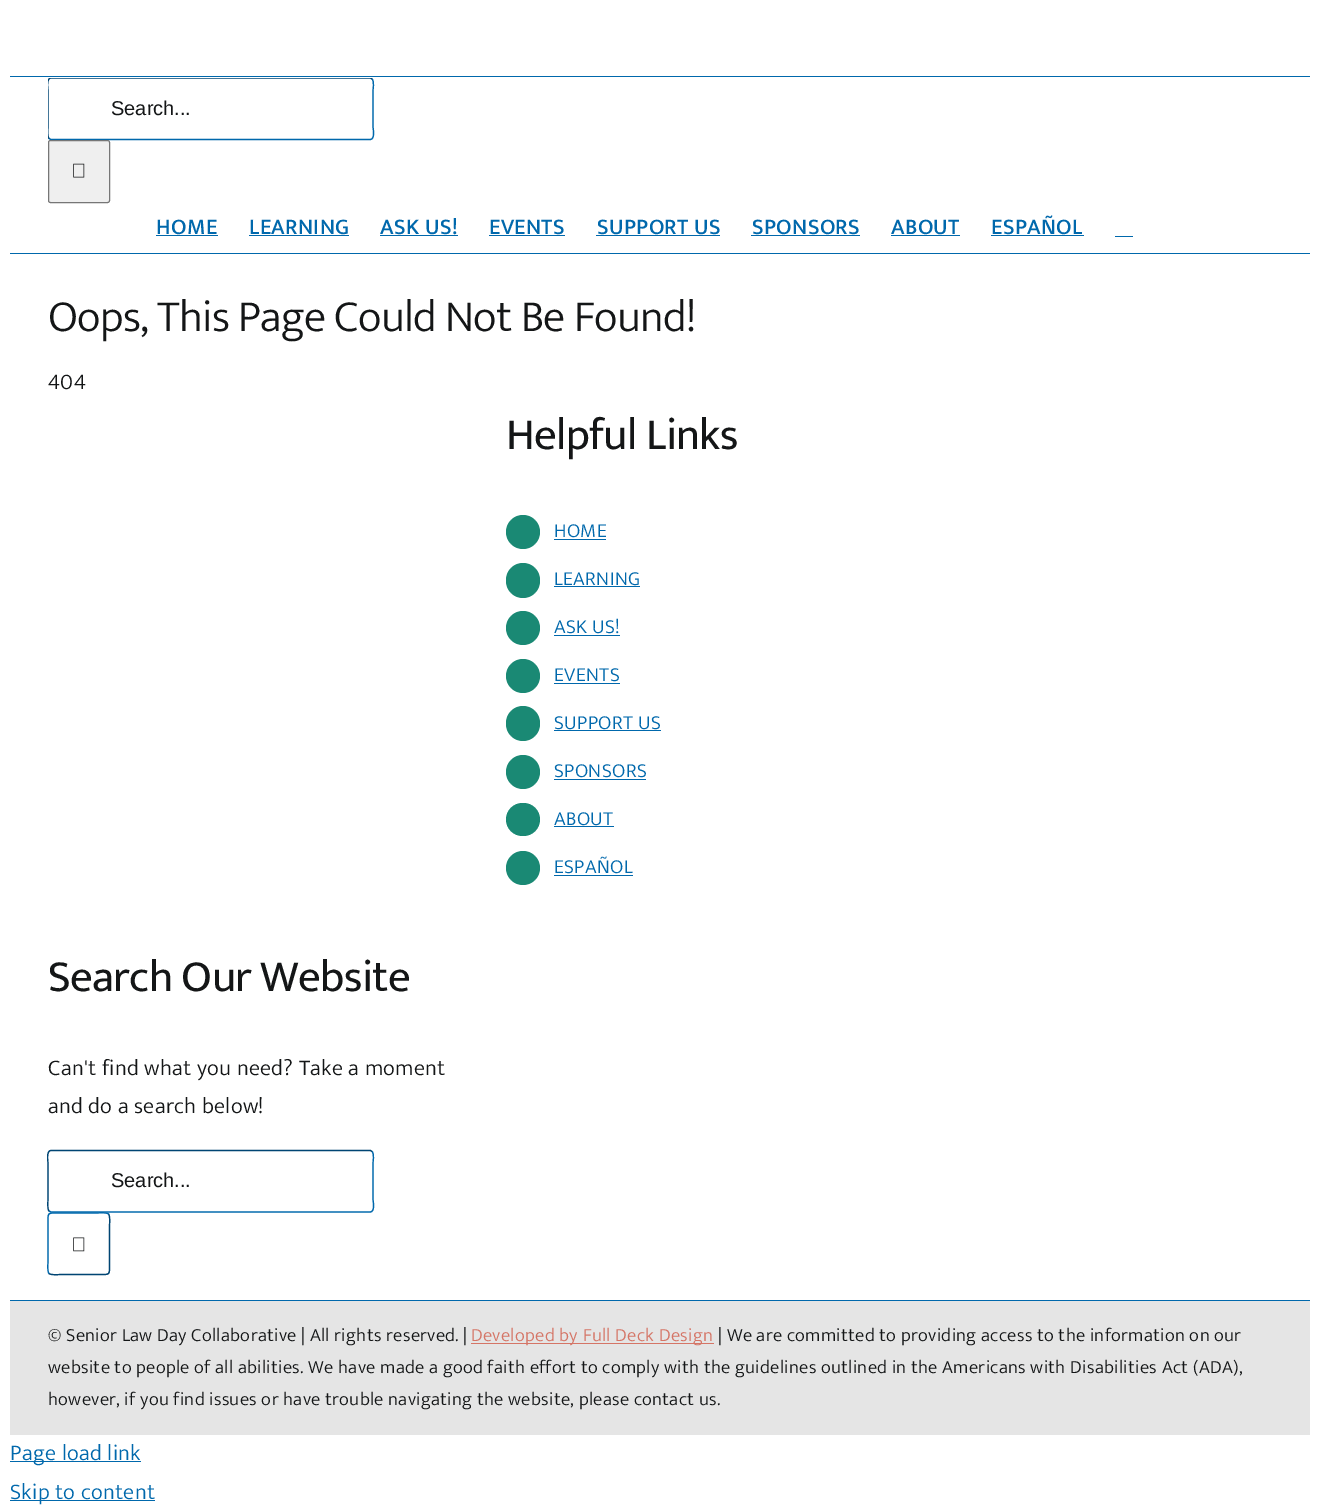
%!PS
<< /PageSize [1319 1506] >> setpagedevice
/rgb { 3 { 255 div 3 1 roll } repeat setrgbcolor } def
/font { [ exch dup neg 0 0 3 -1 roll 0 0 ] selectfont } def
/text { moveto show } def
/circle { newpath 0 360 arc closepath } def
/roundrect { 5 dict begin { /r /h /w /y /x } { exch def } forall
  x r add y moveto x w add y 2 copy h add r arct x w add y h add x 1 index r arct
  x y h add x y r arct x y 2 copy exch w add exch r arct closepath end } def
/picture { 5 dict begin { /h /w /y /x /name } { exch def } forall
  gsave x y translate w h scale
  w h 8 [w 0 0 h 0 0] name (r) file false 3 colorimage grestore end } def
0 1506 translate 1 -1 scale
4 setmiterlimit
255 255 255 rgb
0 0 1319 1506 rectfill
0 104 172 rgb
10 76 1300 1 rectfill
10 253 1300 1 rectfill
1.2 setlinewidth
372 79 moveto 2.5 2.5 1 10.5 1 11.5 rcurveto 0 36.5 rlineto 0 1 2.5 12.5 -3 12.5 rcurveto -319 0 rlineto -2 -1 rlineto stroke
gsave
48 78 1225 175 rectclip
0 69 115 rgb
49 138.5 moveto -2 -2.5 -1 -10.5 -1 -11.5 rcurveto 0 -36.5 rlineto 0 -1 -2 -12.5 3 -12.5 rcurveto 319.5 0 rlineto 1.5 1 rlineto stroke
grestore
239 239 239 rgb
48.5 140.5 61 62 2 roundrect gsave fill grestore
118 118 118 rgb
1 setlinewidth
stroke
(img_01.rgb) 73 163 12 15 picture
0 104 172 rgb
156 235 62 1 rectfill
249 235 100 1 rectfill
380 235 78 1 rectfill
489 235 76 1 rectfill
596 235 124 1 rectfill
751 235 109 1 rectfill
891 235 69 1 rectfill
991 235 93 1 rectfill
1115 236 18 1 rectfill
26 137 116 rgb
523 532 17 circle fill
0 104 172 rgb
554 539 52 1 rectfill
26 137 116 rgb
506 563 34 35 17 roundrect fill
0 104 172 rgb
554 586 86 1 rectfill
26 137 116 rgb
523 628 17 circle fill
0 104 172 rgb
554 635 66 1 rectfill
26 137 116 rgb
523 676 17 circle fill
0 104 172 rgb
554 683 66 1 rectfill
26 137 116 rgb
506 706 34 35 17 roundrect fill
0 104 172 rgb
554 730 107 1 rectfill
26 137 116 rgb
523 772 17 circle fill
0 104 172 rgb
554 779 92 1 rectfill
26 137 116 rgb
506 803 34 33 16.5 roundrect fill
0 104 172 rgb
554 826 60 1 rectfill
26 137 116 rgb
523 868 17 circle fill
0 104 172 rgb
554 875 79 1 rectfill
1.2 setlinewidth
372 1151.5 moveto 2.5 2.5 1 10.5 1 11.5 rcurveto 0 36.5 rlineto 0 1 2.5 12.5 -3 12.5 rcurveto -319 0 rlineto -2 -1 rlineto stroke
0 69 115 rgb
49 1211 moveto -2 -2.5 -1 -10.5 -1 -11.5 rcurveto 0 -36.5 rlineto 0 -1 -2 -12.5 3 -12.5 rcurveto 319.5 0 rlineto 1.5 1 rlineto stroke
108.5 1214 moveto 2 2.5 1 10.5 1 11.5 rcurveto 0 36.5 rlineto 0 14 1.5 12.5 -12.5 12.5 rcurveto -36.5 0 rlineto -1 0 -9 1 -11.5 -1 rcurveto stroke
0 104 172 rgb
49 1273.5 moveto -2 -2.5 -1 -10.5 -1 -11.5 rcurveto 0 -36.5 rlineto 0 -14 -1.5 -12.5 12.5 -12.5 rcurveto 36.5 0 rlineto 1 0 9 -1 11.5 1 rcurveto stroke
(img_02.rgb) 73 1237 12 15 picture
229 229 229 rgb
10 1301 1300 134 rectfill
0 104 172 rgb
10 1300 1300 1 rectfill
213 117 102 rgb
471 1343 243 1 rectfill
0 104 172 rgb
10 1461 131 1 rectfill
10 1500 145 1 rectfill
/LiberationSans-Regular 20 font
20 22 23 rgb
(Search...) 111 115 text
/MuktaVaani-Medium 22.5 font
0 104 172 rgb
156 234 moveto 0.34 0 (HOME) ashow
249 234 moveto 0.34 0 (LEARNING) ashow
380 234 moveto 0.34 0 (ASK US!) ashow
489 234 moveto 0.34 0 (EVENTS) ashow
597 234 moveto 0.34 0 (SUPPORT US) ashow
752 234 moveto 0.34 0 (SPONSORS) ashow
891 234 moveto 0.34 0 (ABOUT) ashow
991 234 moveto 0.34 0 (ESPAÑOL) ashow
/MuktaVaani-Light 45 font
20 22 23 rgb
48 331 moveto -0.7 0 (Oops, This Page Could Not Be Found!) ashow
/MuktaVaani-Light 22.5 font
48 389 moveto 0.34 0 (404) ashow
/MuktaVaani-Regular 45 font
506 449 moveto -0.7 0 (Helpful Links) ashow
/MuktaVaani-Light 20 font
0 104 172 rgb
554 537 moveto 0.34 0 (HOME) ashow
554 585 moveto 0.34 0 (LEARNING) ashow
554 633 moveto 0.34 0 (ASK US!) ashow
554 681 moveto 0.34 0 (EVENTS) ashow
554 729 moveto 0.34 0 (SUPPORT US) ashow
554 777 moveto 0.34 0 (SPONSORS) ashow
554 825 moveto 0.34 0 (ABOUT) ashow
554 873 moveto 0.34 0 (ESPAÑOL) ashow
/MuktaVaani-Regular 45 font
20 22 23 rgb
48 991 moveto -0.7 0 (Search Our Website) ashow
/MuktaVaani-Light 22.5 font
48 1075 moveto 0.34 0 (Can't find what you need? Take a moment) ashow
48 1113 moveto 0.34 0 (and do a search below!) ashow
/LiberationSans-Regular 20 font
(Search...) 111 1187 text
/MuktaVaani-Light 18.75 font
48 1341 moveto 0.34 0 (© Senior Law Day Collaborative | All rights reserved. |) ashow
213 117 102 rgb
471 1341 moveto 0.34 0 (Developed by Full Deck Design) ashow
20 22 23 rgb
718 1341 moveto 0.34 0 (| We are committed to providing access to the information on our) ashow
48 1373 moveto 0.34 0 (website to people of all abilities. We have made a good faith effort to comply with the guidelines outlined in the Americans with Disabilities Act \(ADA\),) ashow
48 1405 moveto 0.34 0 (however, if you find issues or have trouble navigating the website, please contact us.) ashow
/MuktaVaani-Light 22.5 font
0 104 172 rgb
10 1460 moveto 0.34 0 (Page load link) ashow
10 1499 moveto 0.34 0 (Skip to content) ashow
showpage
